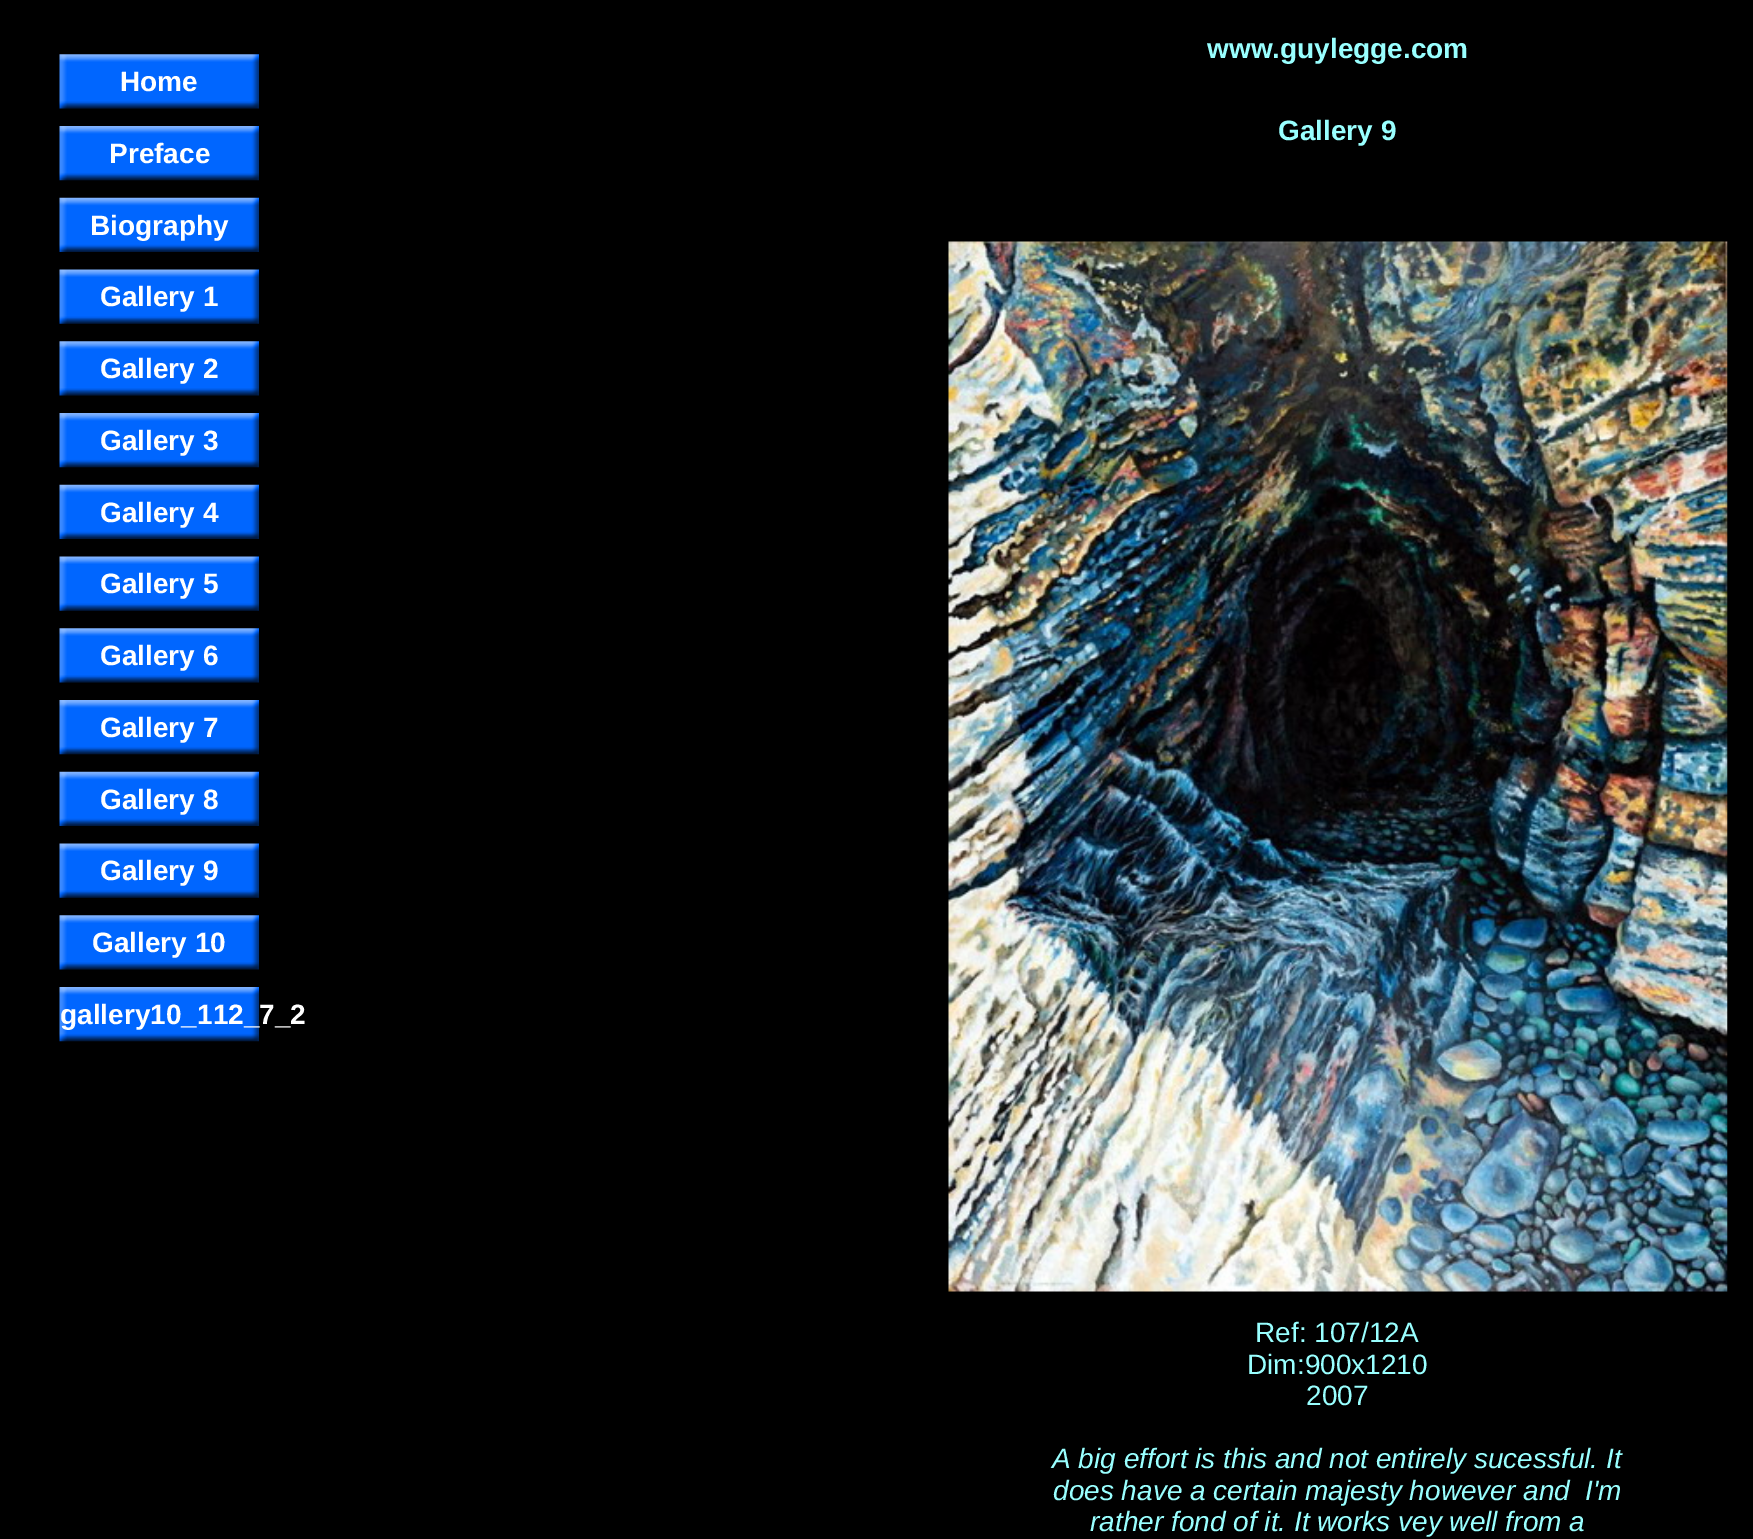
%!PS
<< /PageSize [1753 1539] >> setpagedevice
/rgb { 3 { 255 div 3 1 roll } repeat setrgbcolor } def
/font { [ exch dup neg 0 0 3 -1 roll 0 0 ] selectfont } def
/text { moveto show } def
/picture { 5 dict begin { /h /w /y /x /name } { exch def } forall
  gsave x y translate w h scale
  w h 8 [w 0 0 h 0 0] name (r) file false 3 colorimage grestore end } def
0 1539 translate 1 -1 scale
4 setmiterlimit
0 0 0 rgb
0 0 1753 1539 rectfill
(img_01.rgb) 59 54 200 55 picture
(img_02.rgb) 59 126 200 55 picture
(img_03.rgb) 59 197 200 55 picture
(img_04.rgb) 59 269 200 55 picture
(img_05.rgb) 59 341 200 55 picture
(img_02.rgb) 59 413 200 55 picture
(img_06.rgb) 59 484 200 55 picture
(img_04.rgb) 59 556 200 55 picture
(img_05.rgb) 59 628 200 55 picture
(img_02.rgb) 59 700 200 55 picture
(img_06.rgb) 59 771 200 55 picture
(img_04.rgb) 59 843 200 55 picture
(img_05.rgb) 59 915 200 55 picture
(img_02.rgb) 59 987 200 55 picture
(img_07.rgb) 948 241 780 1051 picture
/LiberationSans-Bold 28 font
153 255 255 rgb
(www.guylegge.com) 1207 58 text
255 255 255 rgb
(Home) 120 91 text
(Preface) 109 163 text
(Biography) 90 235 text
(Gallery 1) 100 306 text
(Gallery 2) 100 378 text
(Gallery 3) 100 450 text
(Gallery 4) 100 522 text
(Gallery 5) 100 593 text
(Gallery 6) 100 665 text
(Gallery 7) 100 737 text
(Gallery 8) 100 809 text
(Gallery 9) 100 880 text
(Gallery 10) 92 952 text
(gallery10_112_7_2) 60 1024 text
153 255 255 rgb
(Gallery 9) 1278 140 text
/LiberationSans-Regular 28 font
(Ref: 107/12A) 1255 1342 text
(Dim:900x1210) 1247 1374 text
(2007) 1306 1405 text
/LiberationSans-Italic 28 font
(A big effort is this and not entirely sucessful. It) 1052 1468 text
(does have a certain majesty however and  I'm) 1053 1500 text
(rather fond of it. It works vey well from a) 1090 1531 text
showpage
